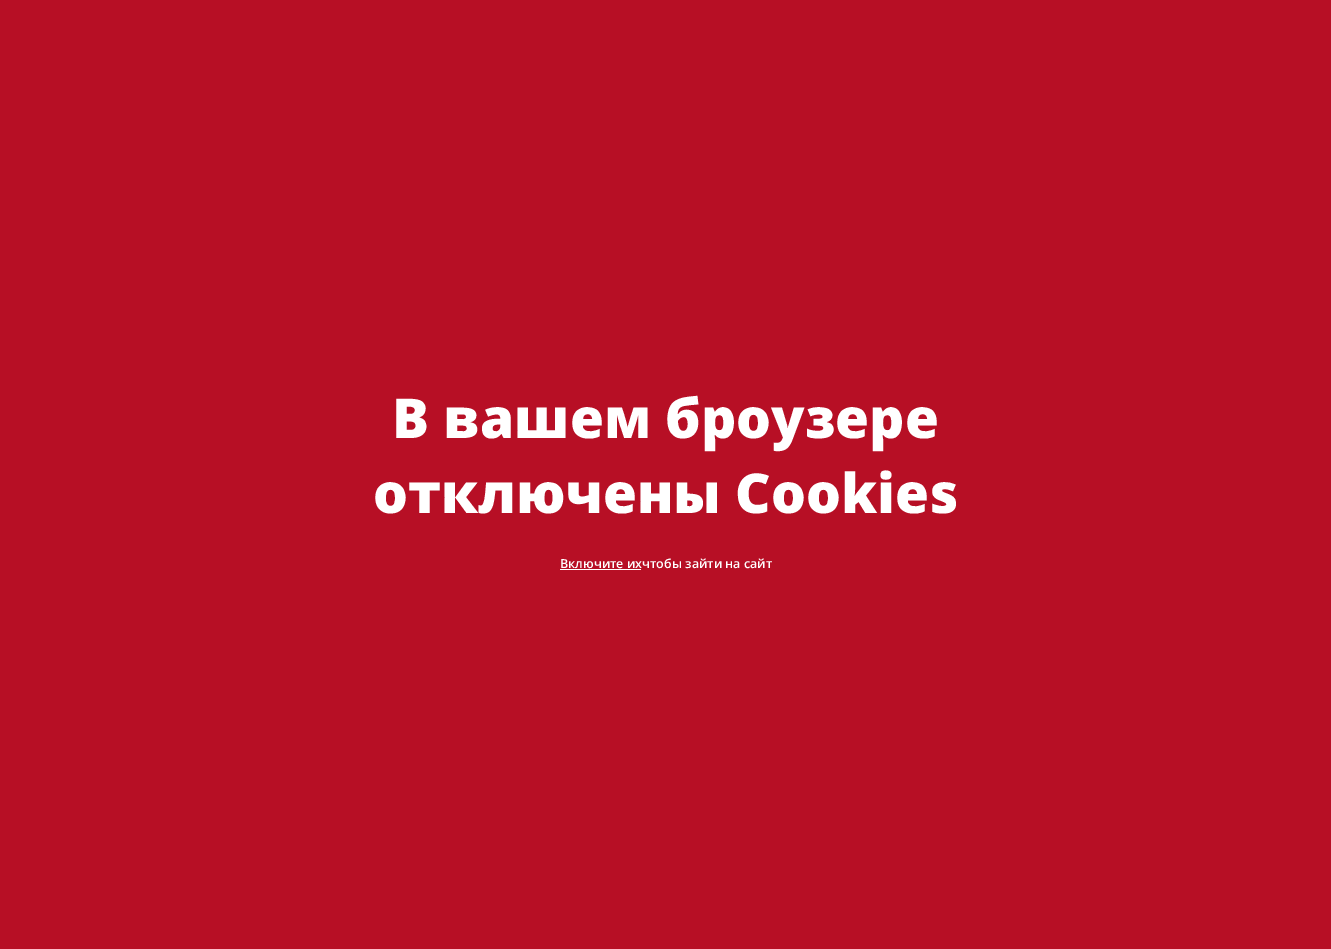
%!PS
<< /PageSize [1331 949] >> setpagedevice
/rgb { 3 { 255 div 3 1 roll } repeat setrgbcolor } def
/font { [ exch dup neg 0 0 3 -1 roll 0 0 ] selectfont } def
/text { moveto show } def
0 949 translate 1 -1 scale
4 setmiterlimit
183 15 37 rgb
0 0 1331 949 rectfill
255 255 255 rgb
560 569 81 1 rectfill
/OpenSans-ExtraBold 55 font
(В вашем броузере) 392 438 text
(отключены Cookies) 373 513 text
/OpenSans-SemiBold 12.5 font
(Включите ихчтобы зайти на сайт) 560 568 text
showpage
